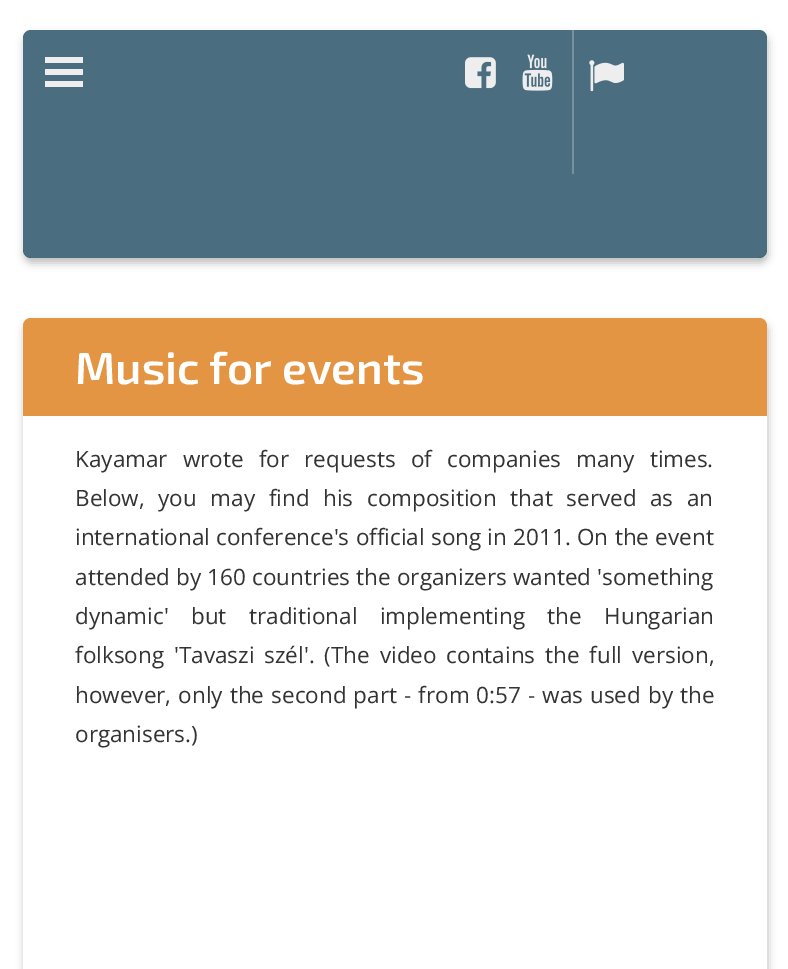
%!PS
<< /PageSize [788 969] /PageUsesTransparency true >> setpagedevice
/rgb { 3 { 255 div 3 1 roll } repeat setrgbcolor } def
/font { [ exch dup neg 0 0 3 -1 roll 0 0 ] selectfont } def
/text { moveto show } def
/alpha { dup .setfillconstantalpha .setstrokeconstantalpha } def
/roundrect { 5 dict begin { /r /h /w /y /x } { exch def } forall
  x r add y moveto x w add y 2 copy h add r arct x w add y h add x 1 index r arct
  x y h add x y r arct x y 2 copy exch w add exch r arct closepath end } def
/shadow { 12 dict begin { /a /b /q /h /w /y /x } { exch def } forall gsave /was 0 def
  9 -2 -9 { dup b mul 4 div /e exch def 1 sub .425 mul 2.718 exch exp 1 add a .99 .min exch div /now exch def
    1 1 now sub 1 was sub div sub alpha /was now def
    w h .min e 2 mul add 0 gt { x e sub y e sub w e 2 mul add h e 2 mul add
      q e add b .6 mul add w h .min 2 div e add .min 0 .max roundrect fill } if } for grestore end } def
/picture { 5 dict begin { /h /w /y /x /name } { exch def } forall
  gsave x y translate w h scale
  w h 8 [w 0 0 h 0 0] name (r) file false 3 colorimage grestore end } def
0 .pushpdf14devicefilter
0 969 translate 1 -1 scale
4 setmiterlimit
255 255 255 rgb
0 0 788 969 rectfill
gsave
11 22 moveto 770 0 rlineto 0 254 rlineto -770 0 rlineto closepath 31 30 moveto 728 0 rlineto 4.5 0 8 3.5 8 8 rcurveto 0 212 rlineto 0 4.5 -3.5 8 -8 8 rcurveto -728 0 rlineto -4.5 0 -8 -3.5 -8 -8 rcurveto 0 -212 rlineto 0 -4.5 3.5 -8 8 -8 rcurveto closepath eoclip newpath
0 0 0 rgb
24 35 744 228 8 4 0.25 shadow
grestore
0.75 alpha
13 60 85 rgb
23 30 744 228 8 roundrect fill
1 alpha
238 238 238 rgb
45 69 38 6 rectfill
45 57 38 6 rectfill
45 81 38 6 rectfill
(img_01.rgb) 465 57 31 32 picture
(img_02.rgb) 522 54 31 37 picture
119 145 159 rgb
572 30 2 144 rectfill
(img_03.rgb) 589 60 35 32 picture
0 0 0 rgb
24 323 744 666 8 4 0.25 shadow
255 255 255 rgb
23 318 744 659 8 roundrect fill
228 149 67 rgb
31 318 moveto 728 0 rlineto 4.5 0 8 3.5 8 8 rcurveto 0 90 rlineto -744 0 rlineto 0 -90 rlineto 0 -4.5 3.5 -8 8 -8 rcurveto closepath fill
/Exo2-SemiBold 45 font
255 255 255 rgb
(Music for events) 75 384 text
/OpenSans-Regular 22.5 font
51 51 51 rgb
75 467 moveto 9.25 0 32 (Kayamar wrote for requests of companies many times.) widthshow
75 506 moveto 7.75 0 32 (Below, you may find his composition that served as an) widthshow
75 545 moveto 0.5 0 32 (international conference's official song in 2011. On the event) widthshow
75 585 moveto 0.25 0 32 (attended by 160 countries the organizers wanted 'something) widthshow
75 624 moveto 16.5 0 32 (dynamic' but traditional implementing the Hungarian) widthshow
75 663 moveto 4 0 32 (folksong 'Tavaszi szél'. \(The video contains the full version,) widthshow
75 703 moveto 1.2 0 32 (however, only the second part - from 0:57 - was used by the) widthshow
(organisers.\)) 75 742 text
.poppdf14devicefilter showpage
